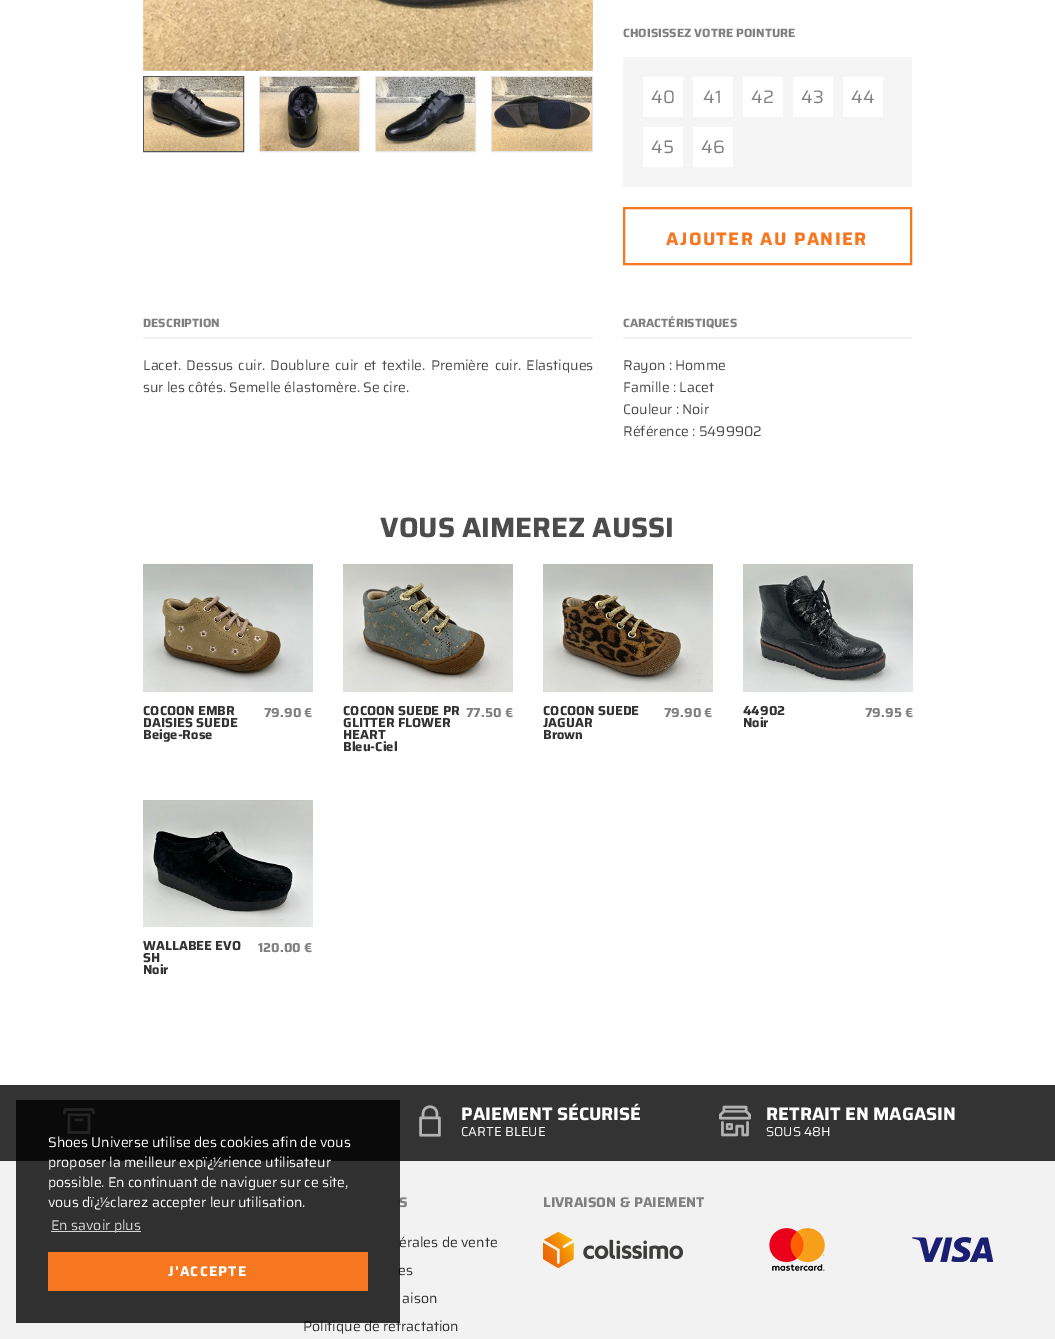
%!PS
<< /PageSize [1055 1339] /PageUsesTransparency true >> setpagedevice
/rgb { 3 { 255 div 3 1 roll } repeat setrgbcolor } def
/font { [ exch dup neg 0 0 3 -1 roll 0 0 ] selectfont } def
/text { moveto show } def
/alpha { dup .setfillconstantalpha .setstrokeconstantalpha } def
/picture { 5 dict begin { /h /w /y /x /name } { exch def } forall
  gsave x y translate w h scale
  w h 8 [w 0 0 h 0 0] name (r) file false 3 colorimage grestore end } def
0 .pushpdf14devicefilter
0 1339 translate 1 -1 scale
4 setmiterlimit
255 255 255 rgb
0 0 1055 1339 rectfill
(img_01.rgb) 142 0 451 71 picture
85 85 85 rgb
143.5 76.5 100 75 rectstroke
(img_02.rgb) 144 77 99 74 picture
230 230 230 rgb
259.5 76.5 100 75 rectstroke
(img_03.rgb) 260 77 99 74 picture
375.5 76.5 100 75 rectstroke
(img_04.rgb) 376 77 99 74 picture
491.5 76.5 101 75 rectstroke
(img_05.rgb) 492 77 100 74 picture
245 245 245 rgb
623 57 289 130 rectfill
255 255 255 rgb
643 77 40 40 rectfill
693 77 40 40 rectfill
743 77 40 40 rectfill
793 77 40 40 rectfill
843 77 40 40 rectfill
643 127 40 40 rectfill
693 127 40 40 rectfill
247 118 32 rgb
2 setlinewidth
624 208 287 56 rectstroke
242 242 242 rgb
143 337 450 2 rectfill
623 337 289 2 rectfill
(img_06.rgb) 143 564 170 128 picture
(img_07.rgb) 343 564 170 128 picture
(img_08.rgb) 543 564 170 128 picture
(img_09.rgb) 743 564 170 128 picture
(img_10.rgb) 143 800 170 127 picture
0 1161 1055 178 rectfill
51 51 51 rgb
0 1085 1055 76 rectfill
(img_11.rgb) 63 1108 32 26 picture
(img_12.rgb) 419 1105 22 32 picture
(img_13.rgb) 719 1105 32 32 picture
(img_14.rgb) 543 1232 140 36 picture
(img_15.rgb) 769 1228 56 43 picture
(img_16.rgb) 912 1237 81 25 picture
/Saira-Bold 12 font
128 128 128 rgb
(CHOISISSEZ VOTRE POINTURE) 623 37 text
/Saira-Regular 18 font
(40) 651 103 text
(41) 703 103 text
(42) 751 103 text
(43) 801 103 text
(44) 851 103 text
(45) 651 153 text
(46) 701 153 text
/Saira-Bold 18 font
247 118 32 rgb
666 245 moveto 1.4 0 (AJOUTER AU PANIER) ashow
/Saira-Bold 12 font
128 128 128 rgb
(DESCRIPTION) 143 327 text
/Saira-Regular 14 font
76 76 76 rgb
143 370 moveto 2 0 32 (Lacet. Dessus cuir. Doublure cuir et textile. Première cuir. Elastiques) widthshow
(sur les côtés. Semelle élastomère. Se cire.) 143 392 text
/Saira-Bold 12 font
128 128 128 rgb
(CARACTÉRISTIQUES) 623 327 text
/Saira-Regular 14 font
76 76 76 rgb
(Rayon : Homme) 623 370 text
(Famille : Lacet) 623 392 text
(Couleur : Noir) 623 414 text
(Référence : 5499902) 623 436 text
/Saira-Bold 28 font
(VOUS AIMEREZ AUSSI) 380 537 text
/Saira-Bold 13 font
51 51 51 rgb
(COCOON EMBR) 143 715 text
(DAISIES SUEDE) 143 727 text
(Beige-Rose) 143 739 text
128 128 128 rgb
(79.90 €) 264 717 text
51 51 51 rgb
(COCOON SUEDE PR) 343 715 text
(GLITTER FLOWER) 343 727 text
(HEART) 343 739 text
(Bleu-Ciel) 343 751 text
128 128 128 rgb
(77.50 €) 466 717 text
51 51 51 rgb
(COCOON SUEDE) 543 715 text
(JAGUAR) 543 727 text
(Brown) 543 739 text
128 128 128 rgb
(79.90 €) 664 717 text
51 51 51 rgb
(44902) 743 715 text
(Noir) 743 727 text
128 128 128 rgb
(79.95 €) 865 717 text
51 51 51 rgb
(WALLABEE EVO) 143 950 text
(SH) 143 962 text
(Noir) 143 974 text
128 128 128 rgb
(120.00 €) 258 952 text
/Saira-Bold 18 font
255 255 255 rgb
(PAIEMENT SÉCURISÉ) 461 1120 text
/Saira-Regular 13 font
(CARTE BLEUE) 461 1136 text
/Saira-Bold 18 font
(RETRAIT EN MAGASIN) 766 1120 text
/Saira-Regular 13 font
(SOUS 48H) 766 1136 text
/Saira-Bold 14 font
128 128 128 rgb
(S) 399 1207 text
/Saira-Regular 14 font
51 51 51 rgb
(érales de vente) 399 1247 text
(es) 398 1275 text
(aison) 402 1303 text
(Politique de retractation) 303 1331 text
/Saira-Bold 14 font
128 128 128 rgb
(LIVRAISON & PAIEMENT) 543 1207 text
0.8 alpha
0 0 0 rgb
16 1100 384 223 rectfill
/Saira-Regular 14 font
1 alpha
255 255 255 rgb
(Shoes Universe utilise des cookies afin de vous) 48 1147 text
(proposer la meilleur expï¿½rience utilisateur) 48 1167 text
(possible. En continuant de naviguer sur ce site,) 48 1187 text
(vous dï¿½clarez accepter leur utilisation.) 48 1207 text
214 214 214 rgb
51 1231 90 1 rectfill
(En savoir plus) 51 1230 text
247 118 32 rgb
48 1252 320 39 rectfill
/Saira-Bold 14 font
255 255 255 rgb
168 1276 moveto 1.1 0 (J'ACCEPTE) ashow
.poppdf14devicefilter showpage
